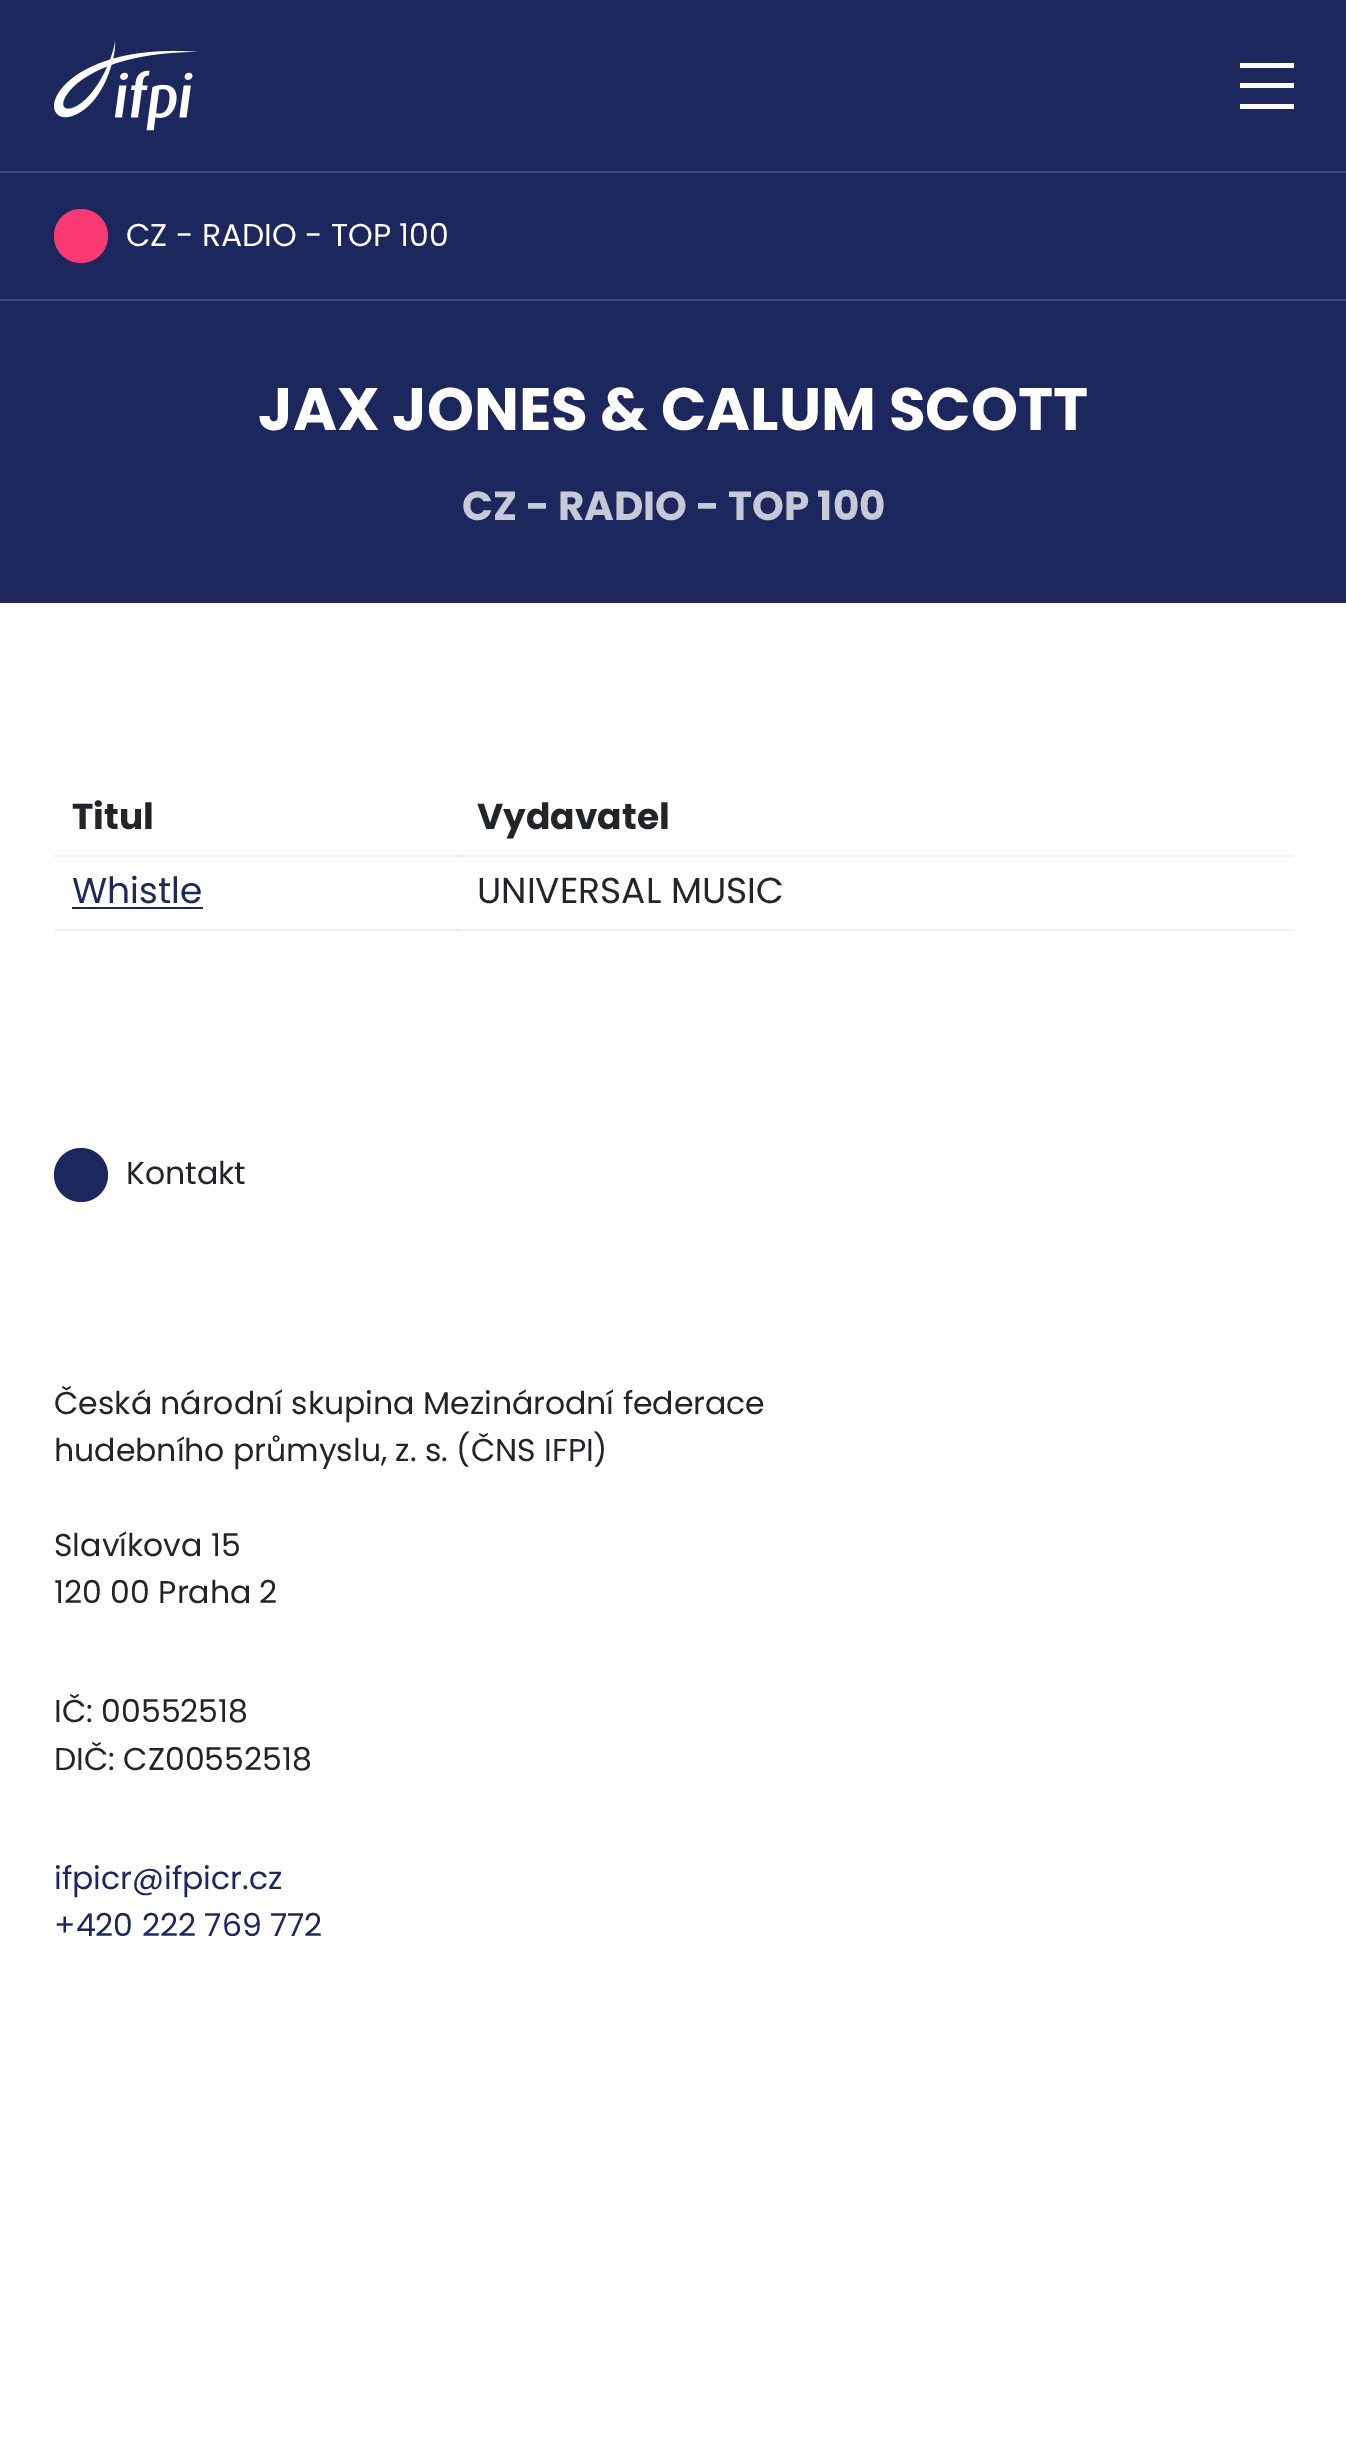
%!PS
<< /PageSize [1346 2443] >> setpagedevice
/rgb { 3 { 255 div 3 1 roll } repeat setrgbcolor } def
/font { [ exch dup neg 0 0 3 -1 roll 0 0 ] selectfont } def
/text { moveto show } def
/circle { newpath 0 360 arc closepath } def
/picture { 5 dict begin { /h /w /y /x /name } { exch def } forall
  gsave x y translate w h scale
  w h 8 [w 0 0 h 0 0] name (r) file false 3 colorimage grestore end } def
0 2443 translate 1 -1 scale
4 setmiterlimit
255 255 255 rgb
0 0 1346 2443 rectfill
240 241 243 rgb
54 855 1240 2 rectfill
54 929 1240 2 rectfill
28 40 93 rgb
0 0 1346 171 rectfill
(img_01.rgb) 54 41 144 90 picture
255 255 255 rgb
1240 63 54 5 rectfill
1240 104 54 5 rectfill
1240 83 54 5 rectfill
28 40 93 rgb
0 173 1346 430 rectfill
62 72 117 rgb
0 171 1346 2 rectfill
0 299 1346 2 rectfill
253 57 116 rgb
81 236 27 circle fill
227 228 232 rgb
457 855 2 2 rectfill
28 40 93 rgb
72 907 131 2 rectfill
227 228 232 rgb
457 929 2 2 rectfill
28 40 93 rgb
81 1175 27 circle fill
/Poppins-Regular 31.5 font
255 255 255 rgb
(CZ - RADIO - TOP 100) 126 246 text
/Poppins-Bold 59.8 font
(JAX JONES & CALUM SCOTT) 258 430 text
/Poppins-Bold 40.5 font
198 201 215 rgb
(CZ - RADIO - TOP 100) 462 520 text
/Poppins-Bold 36 font
33 37 41 rgb
(Titul) 72 829 text
(Vydavatel) 477 829 text
/Poppins-Regular 36 font
28 40 93 rgb
(Whistle) 72 903 text
33 37 41 rgb
(UNIVERSAL MUSIC) 477 903 text
/Poppins-Regular 31.5 font
(Kontakt) 126 1184 text
(Česká národní skupina Mezinárodní federace) 54 1414 text
(hudebního průmyslu, z. s. \(ČNS IFPI\)) 54 1461 text
(Slavíkova 15) 54 1556 text
(120 00 Praha 2) 54 1603 text
(IČ: 00552518) 54 1722 text
(DIČ: CZ00552518) 54 1770 text
28 40 93 rgb
(ifpicr@ifpicr.cz) 54 1889 text
(+420 222 769 772) 54 1936 text
showpage
